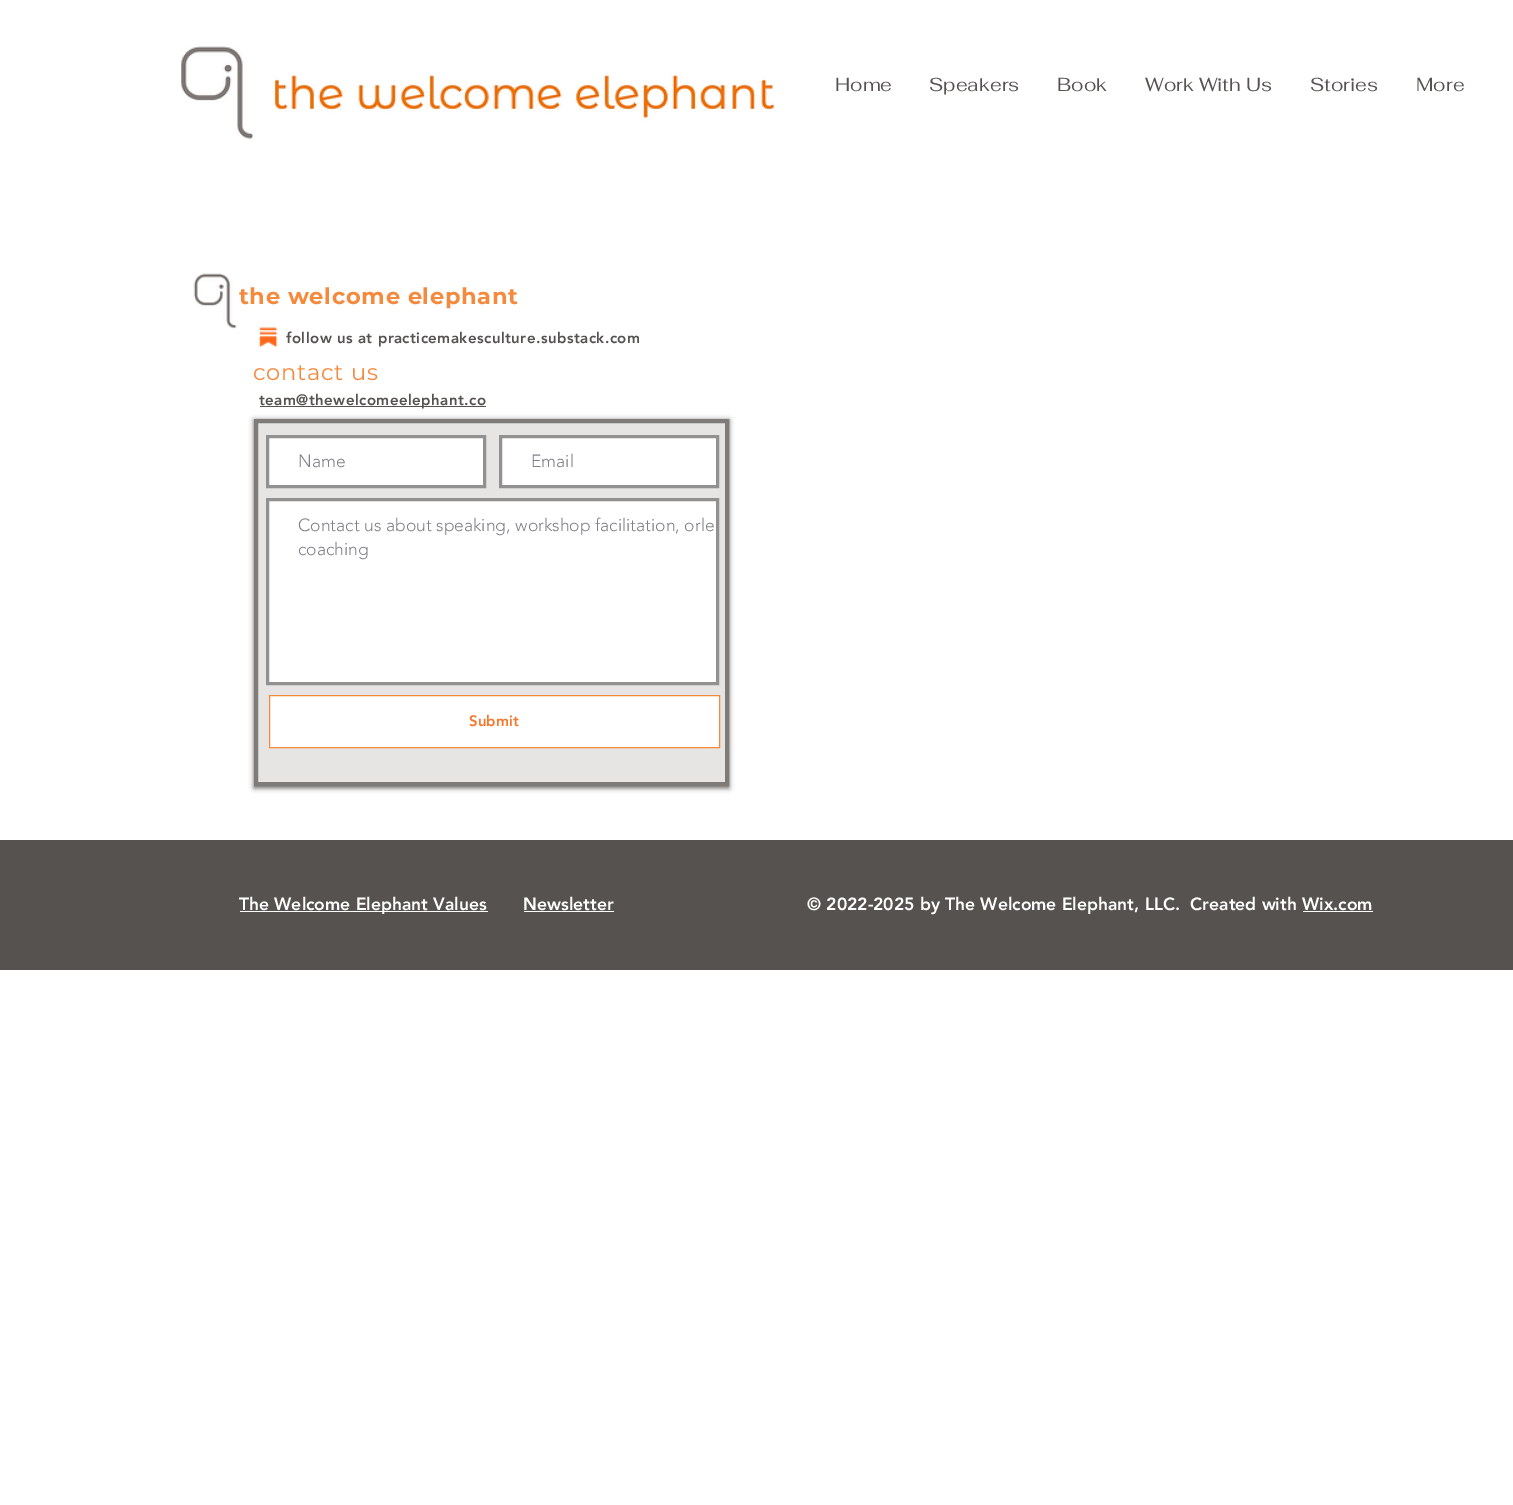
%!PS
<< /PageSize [1513 1505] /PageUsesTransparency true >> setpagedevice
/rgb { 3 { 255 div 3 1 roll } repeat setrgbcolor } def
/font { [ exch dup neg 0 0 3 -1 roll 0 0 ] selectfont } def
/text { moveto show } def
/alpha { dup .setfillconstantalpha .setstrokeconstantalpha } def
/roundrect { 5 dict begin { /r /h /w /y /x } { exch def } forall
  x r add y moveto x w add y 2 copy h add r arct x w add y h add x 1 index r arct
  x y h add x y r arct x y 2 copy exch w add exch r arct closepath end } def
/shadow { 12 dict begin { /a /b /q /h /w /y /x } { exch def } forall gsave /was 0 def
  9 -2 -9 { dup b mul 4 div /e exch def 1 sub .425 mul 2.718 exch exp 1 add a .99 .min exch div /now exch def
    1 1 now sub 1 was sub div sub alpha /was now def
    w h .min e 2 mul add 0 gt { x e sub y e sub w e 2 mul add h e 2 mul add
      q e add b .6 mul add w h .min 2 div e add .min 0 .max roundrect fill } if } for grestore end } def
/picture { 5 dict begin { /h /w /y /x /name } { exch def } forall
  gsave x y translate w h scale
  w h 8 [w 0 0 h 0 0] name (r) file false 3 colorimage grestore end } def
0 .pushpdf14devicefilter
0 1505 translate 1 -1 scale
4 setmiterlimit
255 255 255 rgb
0 0 1513 1505 rectfill
(img_01.rgb) 181 46 594 93 picture
(img_02.rgb) 193 273 44 56 picture
(img_03.rgb) 258 327 20 21 picture
85 82 80 rgb
260 406 226 1 rectfill
gsave
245 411 moveto 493 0 rlineto 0 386 rlineto -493 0 rlineto closepath 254 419 moveto 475 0 rlineto 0 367 rlineto -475 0 rlineto closepath eoclip newpath
0 0 0 rgb
254 420 475 368 0 2.5 0.6 shadow
grestore
0.57 alpha
212 210 208 rgb
256 421 moveto 471 0 rlineto 0 363 rlineto -471 0 rlineto closepath fill
1 alpha
127 123 120 rgb
4 setlinewidth
256 421 moveto 471 0 rlineto 0 363 rlineto -471 0 rlineto closepath stroke
255 255 255 rgb
267.5 436.5 moveto 217 0 rlineto 0 50 rlineto -217 0 rlineto closepath gsave fill grestore
145 145 145 rgb
3 setlinewidth
stroke
255 255 255 rgb
500.5 436.5 moveto 217 0 rlineto 0 50 rlineto -217 0 rlineto closepath gsave fill grestore
145 145 145 rgb
stroke
255 255 255 rgb
267.5 499.5 moveto 450 0 rlineto 0 184 rlineto -450 0 rlineto closepath gsave fill grestore
145 145 145 rgb
stroke
255 255 255 rgb
269.5 695.5 moveto 450 0 rlineto 0 52 rlineto -450 0 rlineto closepath gsave fill grestore
245 137 60 rgb
1 setlinewidth
stroke
85 82 80 rgb
0 840 1513 130 rectfill
255 255 255 rgb
240 911 248 1 rectfill
524 911 90 1 rectfill
1303 911 70 1 rectfill
/Fahkwang-Regular 18.75 font
85 82 80 rgb
(Home) 835 91 text
(Speakers) 929 91 text
(Book) 1057 91 text
(Work With Us) 1145 91 text
(Stories) 1310 91 text
(More) 1416 91 text
/Montserrat-Bold 22.5 font
245 137 60 rgb
239 304 moveto 0.7 0 (the welcome elephant) ashow
/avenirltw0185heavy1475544-Black 15 font
85 82 80 rgb
286 343 moveto 0.45 0 (follow us at practicemakesculture.substack.com) ashow
/Montserrat-Regular 22.5 font
245 137 60 rgb
253 380 moveto 0.7 0 (contact us) ashow
/avenirltw0185heavy1475544-Black 15 font
85 82 80 rgb
259 405 moveto 0.45 0 (team@thewelcomeelephant.co) ashow
/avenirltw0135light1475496-Light 17.5 font
127 128 138 rgb
(Name) 298 467 text
(Email) 531 467 text
(Contact us about speaking, workshop facilitation, orle) 298 531 text
(coaching) 298 555 text
/avenirltw0185heavy1475544-Black 15 font
245 120 45 rgb
(Submit) 469 726 text
/avenirltw0185heavy1475544-Black 17.5 font
255 255 255 rgb
(The Welcome Elephant Values) 239 910 text
(Newsletter) 523 910 text
(© 2022-2025 by The Welcome Elephant, LLC.  Created with Wix.com) 807 910 text
.poppdf14devicefilter showpage
